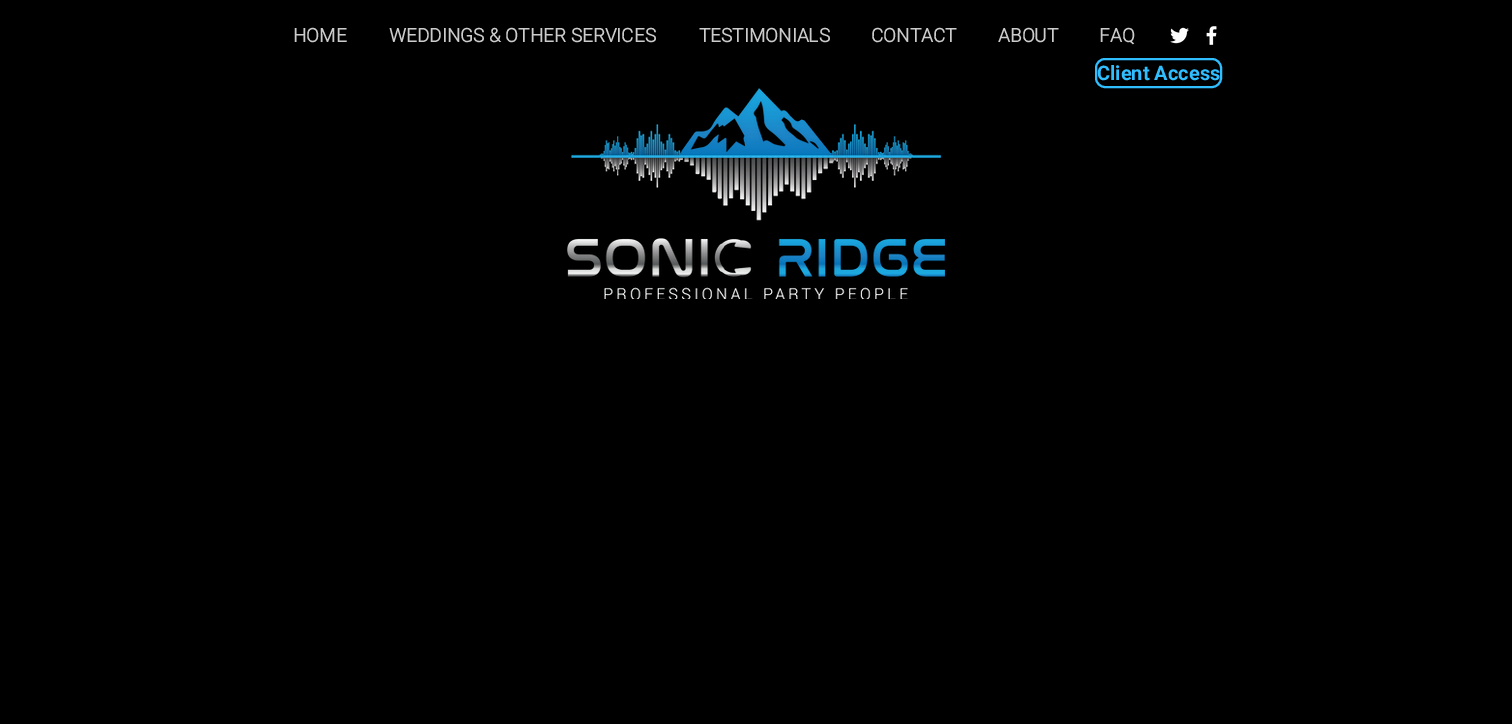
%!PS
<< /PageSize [1512 724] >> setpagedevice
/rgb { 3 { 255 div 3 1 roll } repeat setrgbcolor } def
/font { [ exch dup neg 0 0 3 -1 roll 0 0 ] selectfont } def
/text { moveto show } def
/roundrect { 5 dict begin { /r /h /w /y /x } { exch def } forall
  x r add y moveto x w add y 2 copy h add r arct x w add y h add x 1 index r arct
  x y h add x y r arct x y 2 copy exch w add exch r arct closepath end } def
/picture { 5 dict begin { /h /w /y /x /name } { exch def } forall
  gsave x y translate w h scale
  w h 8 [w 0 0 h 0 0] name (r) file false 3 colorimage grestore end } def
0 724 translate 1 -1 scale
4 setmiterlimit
0 0 0 rgb
0 0 1512 724 rectfill
(img_01.rgb) 1170 27 19 17 picture
(img_02.rgb) 1206 26 11 19 picture
48 190 255 rgb
2 setlinewidth
1096 59 125 28 9 roundrect stroke
(img_03.rgb) 567 88 378 211 picture
/Roboto-Bold 19 font
204 204 204 rgb
(HOME) 293 42 text
(WEDDINGS & OTHER SERVICES) 389 42 text
(TESTIMONIALS) 699 42 text
(CONTACT) 871 42 text
(ABOUT) 998 42 text
(FAQ) 1099 42 text
/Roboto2-Bold 20 font
48 190 255 rgb
(Client Access) 1097 80 text
showpage
